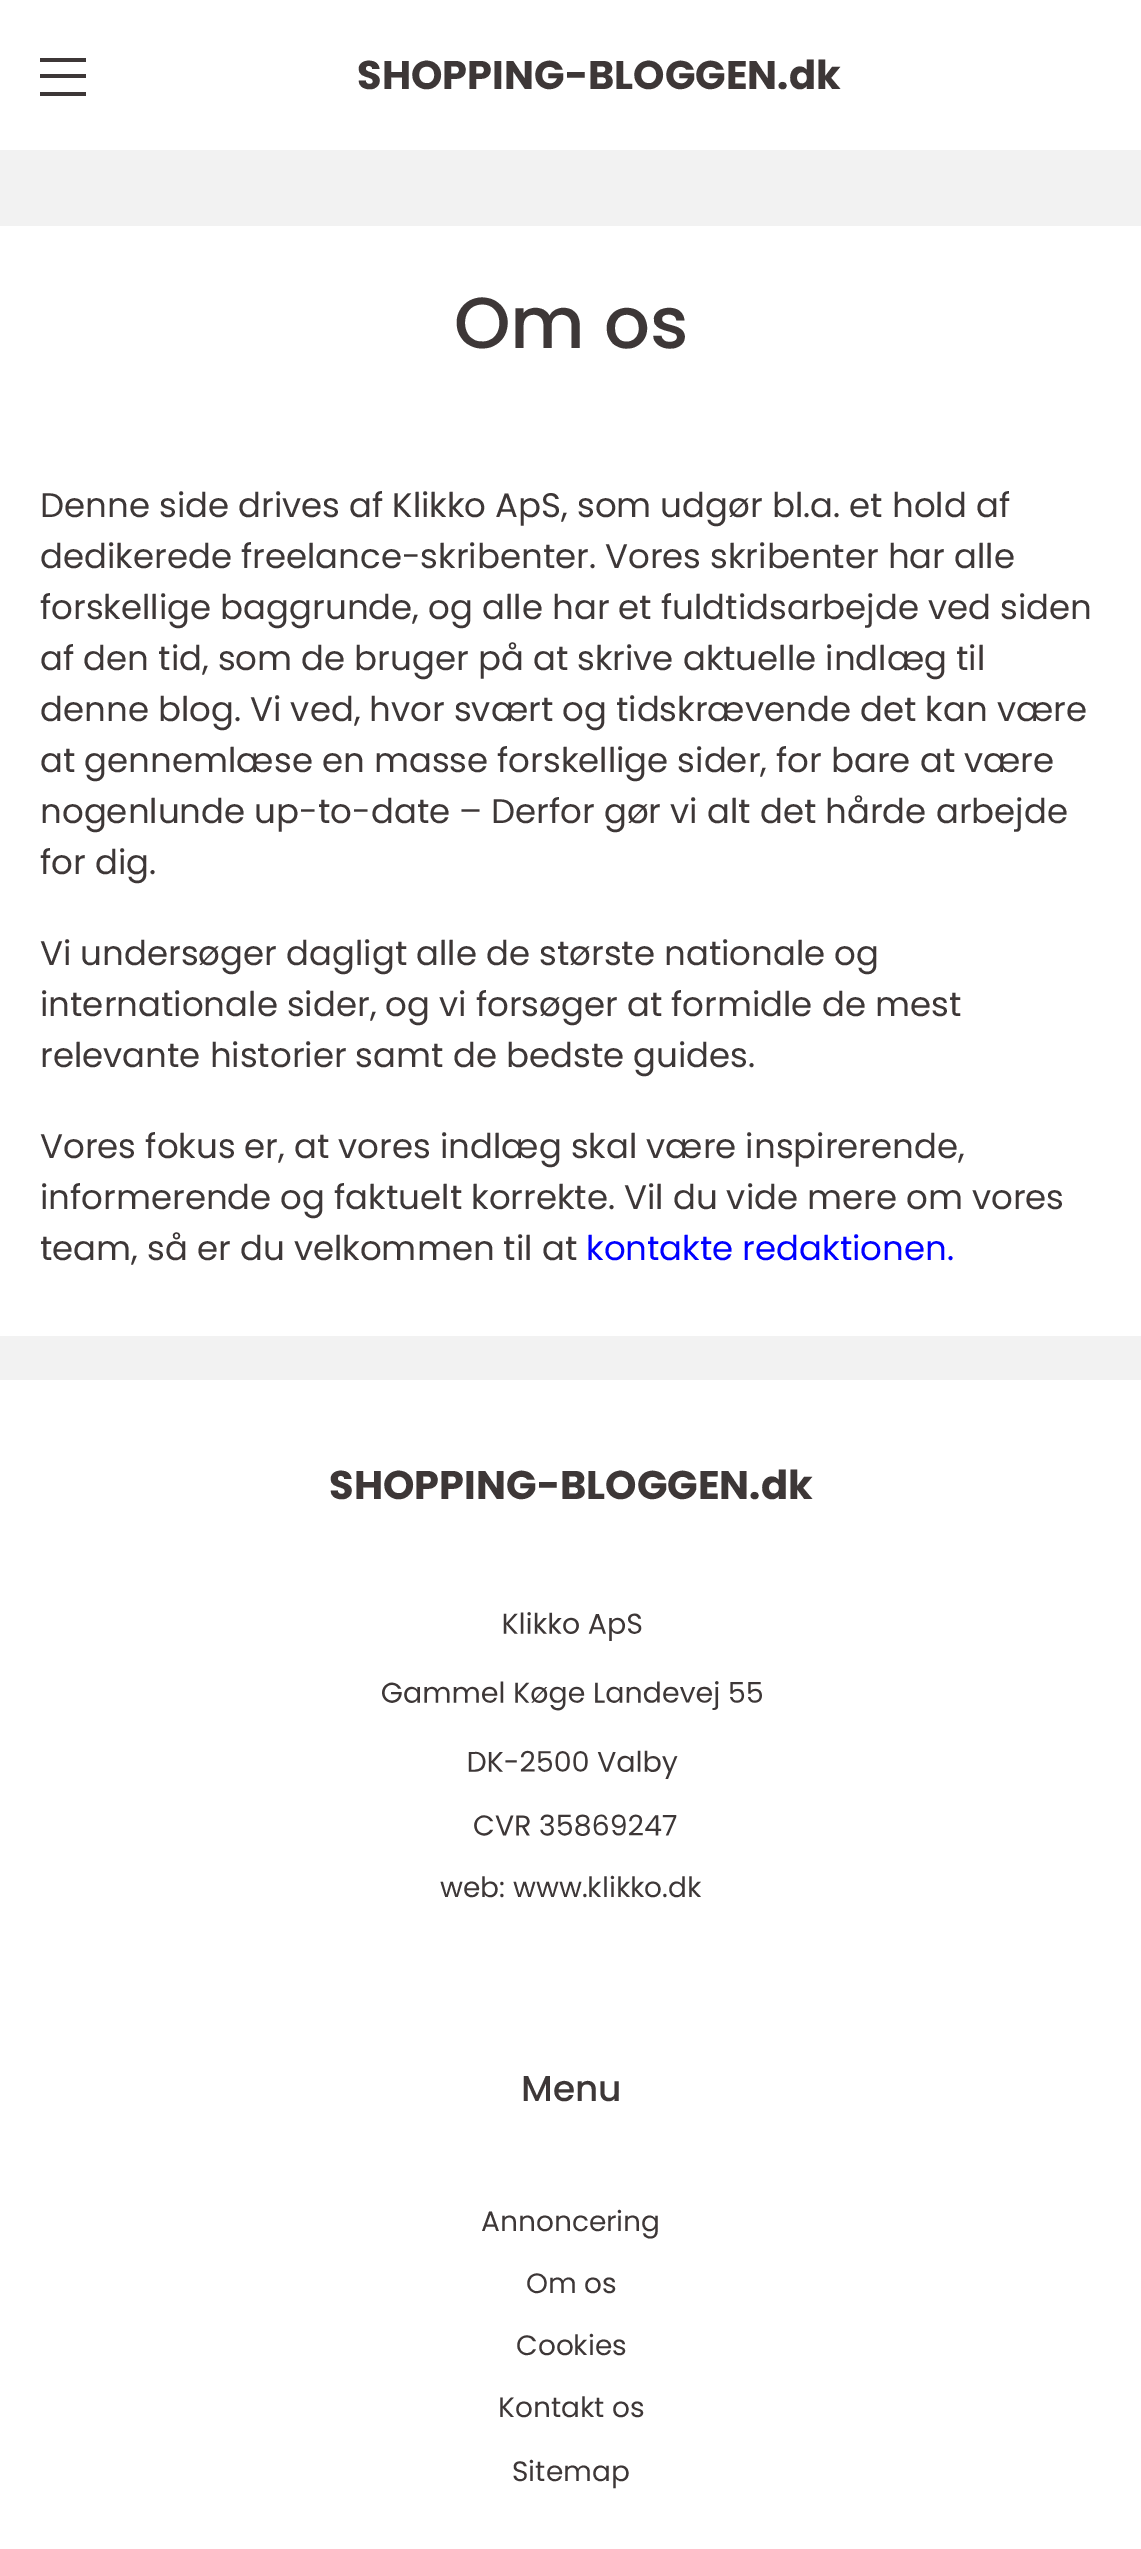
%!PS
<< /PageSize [1141 2549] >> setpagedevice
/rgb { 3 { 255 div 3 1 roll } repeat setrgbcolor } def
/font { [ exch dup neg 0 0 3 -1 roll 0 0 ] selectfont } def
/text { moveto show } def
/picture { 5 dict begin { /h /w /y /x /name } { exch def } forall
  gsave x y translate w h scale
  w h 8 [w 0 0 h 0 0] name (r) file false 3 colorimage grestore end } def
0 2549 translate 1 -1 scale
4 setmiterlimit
242 242 242 rgb
0 0 1141 2549 rectfill
255 255 255 rgb
0 0 1141 150 rectfill
61 55 55 rgb
40 58 46 4 rectfill
40 74 46 4 rectfill
40 92 46 4 rectfill
255 255 255 rgb
0 226 1141 2323 rectfill
242 242 242 rgb
0 1336 1141 44 rectfill
(img_01.rgb) 382 1612 380 224 picture
/Poppins-Bold 40 font
61 55 55 rgb
(SHOPPING-BLOGGEN.dk) 357 89 text
/Poppins-Medium 72 font
(Om os) 454 348 text
/Poppins-Regular 34 font
(Denne side drives af Klikko ApS, som udgør bl.a. et hold af) 40 517 text
(dedikerede freelance-skribenter. Vores skribenter har alle) 40 568 text
(forskellige baggrunde, og alle har et fuldtidsarbejde ved siden) 40 619 text
(af den tid, som de bruger på at skrive aktuelle indlæg til) 40 670 text
(denne blog. Vi ved, hvor svært og tidskrævende det kan være) 40 721 text
(at gennemlæse en masse forskellige sider, for bare at være) 40 772 text
(nogenlunde up-to-date – Derfor gør vi alt det hårde arbejde) 40 823 text
(for dig.) 40 874 text
(Vi undersøger dagligt alle de største nationale og) 40 965 text
(internationale sider, og vi forsøger at formidle de mest) 40 1016 text
(relevante historier samt de bedste guides.) 40 1067 text
(Vores fokus er, at vores indlæg skal være inspirerende,) 40 1158 text
(informerende og faktuelt korrekte. Vil du vide mere om vores) 40 1209 text
(team, så er du velkommen til at) 40 1260 text
0 0 255 rgb
(kontakte redaktionen.) 586 1260 text
/Poppins-Bold 40 font
61 55 55 rgb
(SHOPPING-BLOGGEN.dk) 329 1499 text
/Poppins-Regular 28 font
(web: www.klikko.dk) 440 1897 text
/Poppins-Medium 36 font
(Menu) 521 2101 text
/Poppins-Regular 28 font
(Annoncering) 481 2231 text
(Om os) 526 2293 text
(Cookies) 516 2355 text
(Kontakt os) 498 2417 text
(Sitemap) 512 2481 text
showpage
